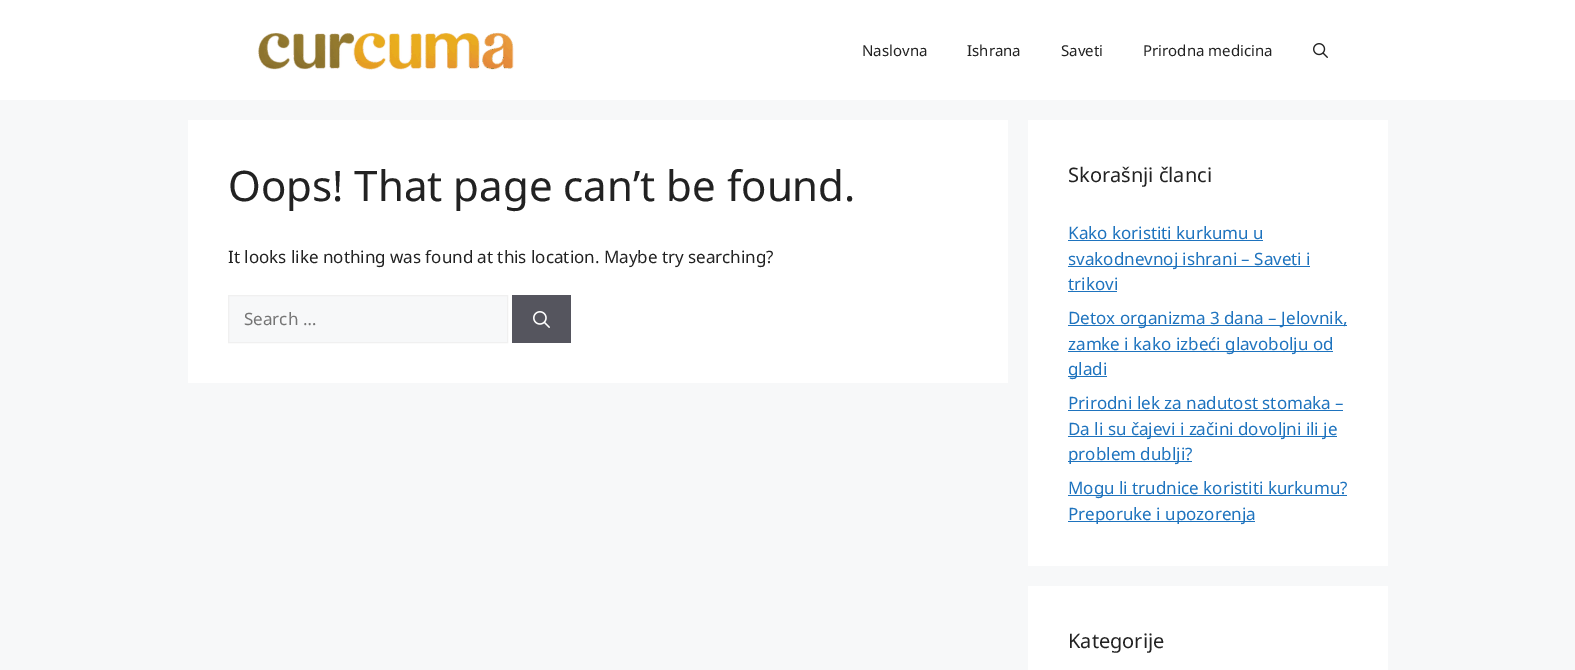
%!PS
<< /PageSize [1575 670] >> setpagedevice
/rgb { 3 { 255 div 3 1 roll } repeat setrgbcolor } def
/font { [ exch dup neg 0 0 3 -1 roll 0 0 ] selectfont } def
/text { moveto show } def
/picture { 5 dict begin { /h /w /y /x /name } { exch def } forall
  gsave x y translate w h scale
  w h 8 [w 0 0 h 0 0] name (r) file false 3 colorimage grestore end } def
0 670 translate 1 -1 scale
4 setmiterlimit
247 248 249 rgb
0 0 1575 670 rectfill
255 255 255 rgb
0 0 1575 100 rectfill
(img_01.rgb) 258 32 256 38 picture
(img_02.rgb) 1313 43 15 15 picture
188 120 820 263 rectfill
247 248 249 rgb
228.5 295.5 moveto 279 0 rlineto 0 47 rlineto -279 0 rlineto closepath gsave fill grestore
240 240 240 rgb
stroke
85 85 94 rgb
512 295 59 48 rectfill
(img_03.rgb) 533 311 17 17 picture
255 255 255 rgb
1028 120 360 446 rectfill
30 115 190 rgb
1068 240 195 1 rectfill
1068 266 242 1 rectfill
1068 291 49 1 rectfill
1068 325 279 1 rectfill
1068 351 265 1 rectfill
1068 376 39 1 rectfill
1068 410 275 1 rectfill
1068 436 269 1 rectfill
1068 461 124 1 rectfill
1068 495 279 1 rectfill
1068 521 187 1 rectfill
255 255 255 rgb
1028 586 360 84 rectfill
/NotoSans-Regular 15 font
34 34 34 rgb
(Naslovna) 862 56 text
(Ishrana) 967 56 text
(Saveti) 1061 56 text
(Prirodna medicina) 1143 56 text
/NotoSans-Regular 42 font
(Oops! That page can’t be found.) 228 201 text
/NotoSans-Regular 17 font
(It looks like nothing was found at this location. Maybe try searching?) 228 263 text
117 117 117 rgb
(Search …) 244 325 text
/NotoSans-Regular 20 font
34 34 34 rgb
(Skorašnji članci) 1068 182 text
/NotoSans-Regular 17 font
30 115 190 rgb
(Kako koristiti kurkumu u) 1068 239 text
(svakodnevnoj ishrani – Saveti i) 1068 265 text
(trikovi) 1068 290 text
(Detox organizma 3 dana – Jelovnik,) 1068 324 text
(zamke i kako izbeći glavobolju od) 1068 350 text
(gladi) 1068 375 text
(Prirodni lek za nadutost stomaka –) 1068 409 text
(Da li su čajevi i začini dovoljni ili je) 1068 435 text
(problem dublji?) 1068 460 text
(Mogu li trudnice koristiti kurkumu?) 1068 494 text
(Preporuke i upozorenja) 1068 520 text
/NotoSans-Regular 20 font
34 34 34 rgb
(Kategorije) 1068 648 text
showpage
